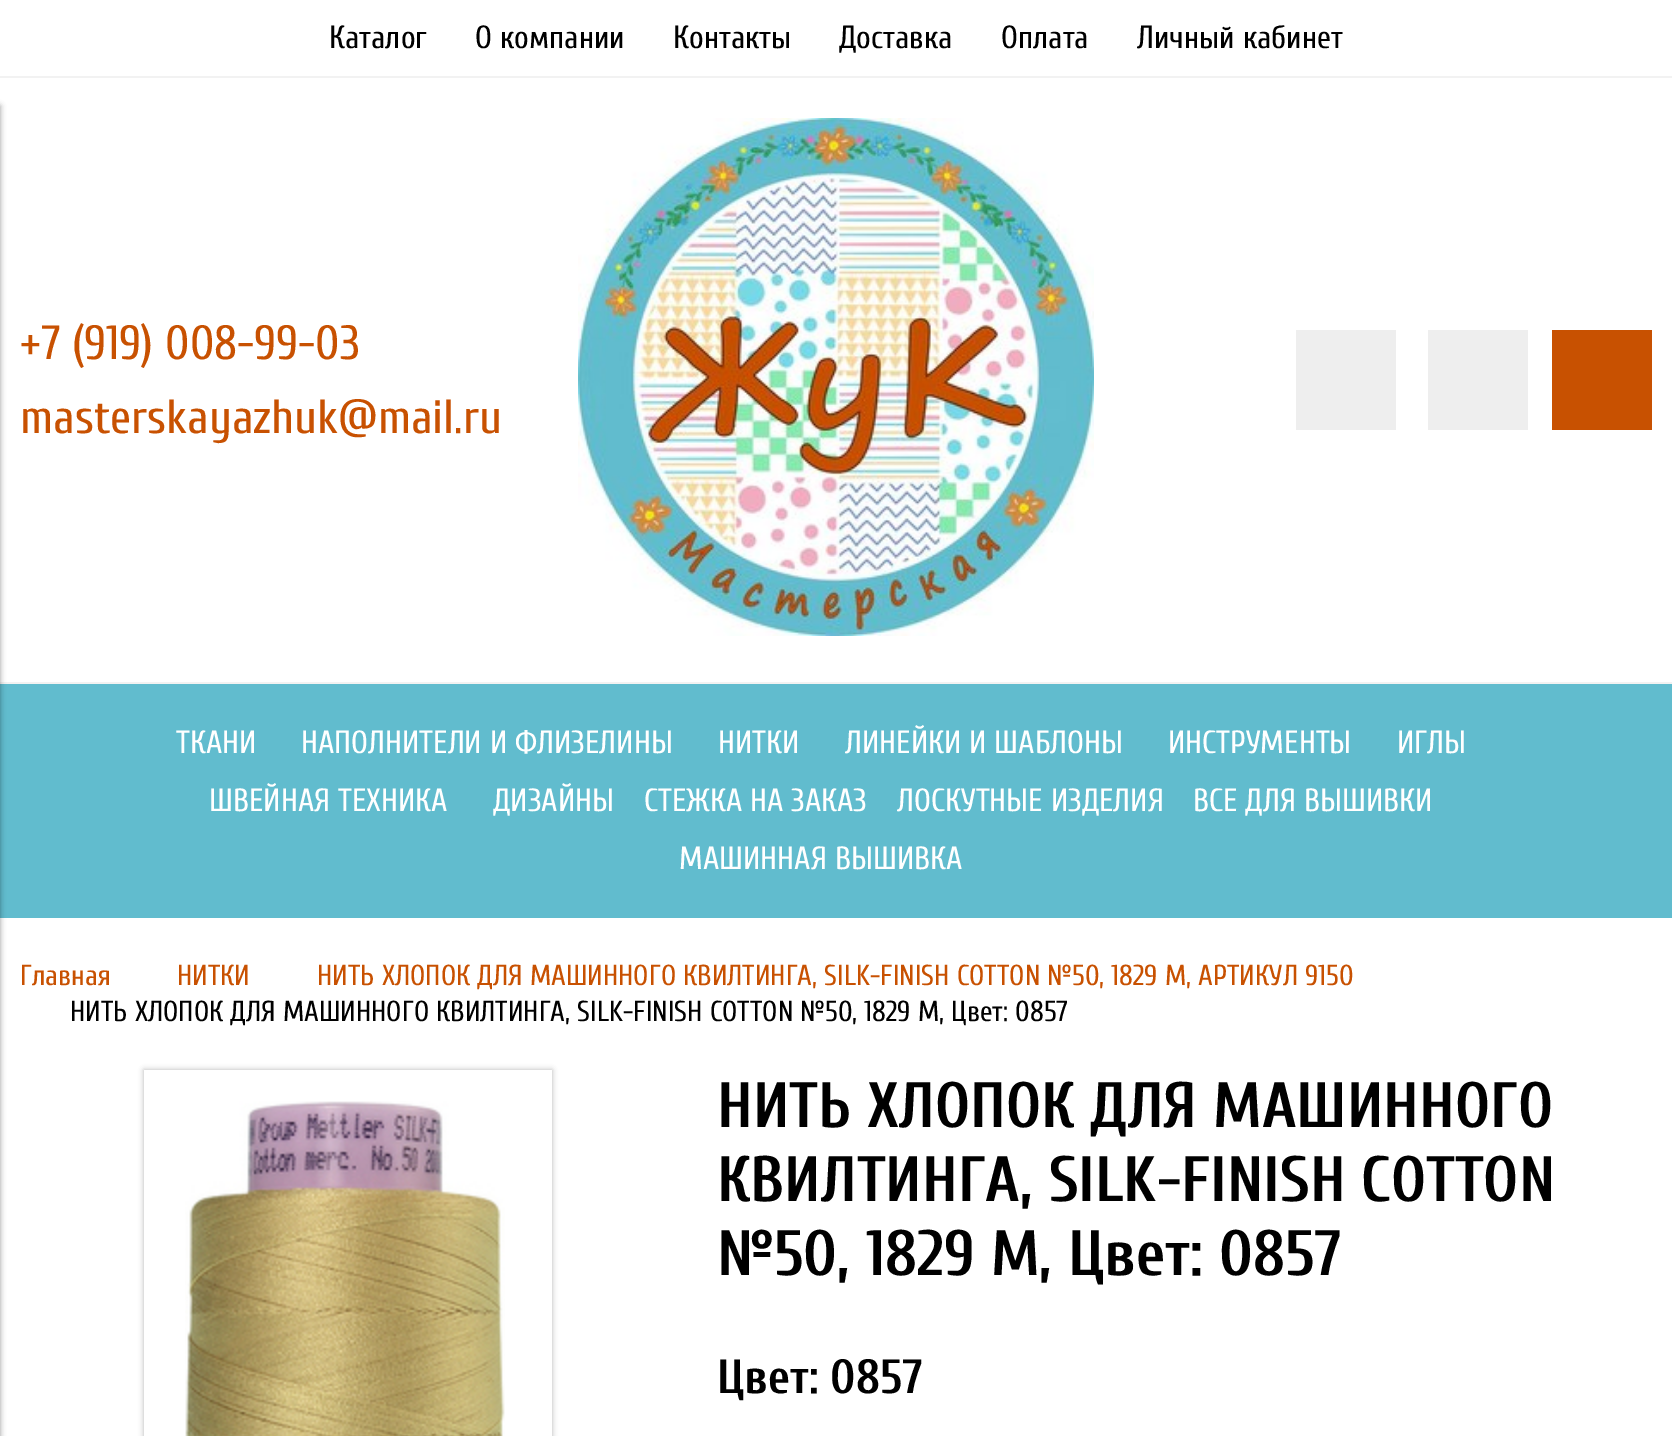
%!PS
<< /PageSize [1672 1436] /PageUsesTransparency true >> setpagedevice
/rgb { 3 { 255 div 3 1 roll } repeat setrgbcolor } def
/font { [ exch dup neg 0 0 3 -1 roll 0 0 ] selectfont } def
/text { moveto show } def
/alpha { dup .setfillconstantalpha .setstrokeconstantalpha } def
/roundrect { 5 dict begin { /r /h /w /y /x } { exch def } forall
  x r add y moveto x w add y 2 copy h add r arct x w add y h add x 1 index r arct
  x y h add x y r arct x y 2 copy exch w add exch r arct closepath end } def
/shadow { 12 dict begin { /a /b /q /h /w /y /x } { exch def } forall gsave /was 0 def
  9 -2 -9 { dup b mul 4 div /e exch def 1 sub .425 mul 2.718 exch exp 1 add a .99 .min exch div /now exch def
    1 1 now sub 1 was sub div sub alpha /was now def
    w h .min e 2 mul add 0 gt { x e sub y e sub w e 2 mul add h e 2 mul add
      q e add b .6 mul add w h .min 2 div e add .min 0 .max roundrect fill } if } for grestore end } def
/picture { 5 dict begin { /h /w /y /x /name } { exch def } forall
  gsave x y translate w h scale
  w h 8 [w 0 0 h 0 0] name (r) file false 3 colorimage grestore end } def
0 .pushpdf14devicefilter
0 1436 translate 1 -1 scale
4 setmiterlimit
255 255 255 rgb
0 0 1672 1436 rectfill
242 242 242 rgb
0 682 1672 2 rectfill
97 188 206 rgb
0 684 1672 234 rectfill
0 0 0 rgb
-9 106 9 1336 0 3 0.4 shadow
242 242 242 rgb
0 76 1672 2 rectfill
(img_01.rgb) 578 118 516 518 picture
238 238 238 rgb
1296 330 100 100 rectfill
1428 330 100 100 rectfill
200 81 1 rgb
1552 330 100 100 rectfill
gsave
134 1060 moveto 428 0 rlineto 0 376 rlineto -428 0 rlineto closepath 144 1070 moveto 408 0 rlineto 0 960 rlineto -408 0 rlineto closepath eoclip newpath
0 0 0 rgb
144 1070 408 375 0 3 0.3 shadow
grestore
(img_02.rgb) 185 1101 320 335 picture
/Cuprum-Regular 32 font
0 0 0 rgb
(Каталог) 329 48 text
(О компании) 475 48 text
(Контакты) 673 48 text
(Доставка) 839 48 text
(Оплата) 1001 48 text
(Личный кабинет) 1137 48 text
/Cuprum-Regular 48 font
200 81 1 rgb
(+7 \(919\) 008-99-03) 20 359 text
(masterskayazhuk@mail.ru) 20 433 text
/Cuprum-Regular 32 font
255 255 255 rgb
(ТКАНИ) 176 753 text
(НАПОЛНИТЕЛИ И ФЛИЗЕЛИНЫ) 301 753 text
(НИТКИ) 718 753 text
(ЛИНЕЙКИ И ШАБЛОНЫ) 845 753 text
(ИНСТРУМЕНТЫ) 1168 753 text
(ИГЛЫ) 1397 753 text
(ШВЕЙНАЯ ТЕХНИКА) 209 811 text
(ДИЗАЙНЫ) 493 811 text
(СТЕЖКА НА ЗАКАЗ) 644 811 text
(ЛОСКУТНЫЕ ИЗДЕЛИЯ) 897 811 text
(ВСЕ ДЛЯ ВЫШИВКИ) 1193 811 text
(МАШИННАЯ ВЫШИВКА) 679 869 text
/Cuprum-Regular 28.8 font
200 81 1 rgb
(Главная) 20 985 text
(НИТКИ) 177 985 text
(НИТЬ ХЛОПОК ДЛЯ МАШИННОГО КВИЛТИНГА, SILK-FINISH COTTON №50, 1829 М, АРТИКУЛ 9150) 317 985 text
0 0 0 rgb
(НИТЬ ХЛОПОК ДЛЯ МАШИННОГО КВИЛТИНГА, SILK-FINISH COTTON №50, 1829 М, Цвет: 0857) 70 1021 text
/Cuprum-Bold 64 font
(НИТЬ ХЛОПОК ДЛЯ МАШИННОГО) 717 1127 text
(КВИЛТИНГА, SILK-FINISH COTTON) 717 1201 text
(№50, 1829 М, Цвет: 0857) 717 1275 text
/Cuprum-Bold 48 font
(Цвет: 0857) 717 1393 text
.poppdf14devicefilter showpage
